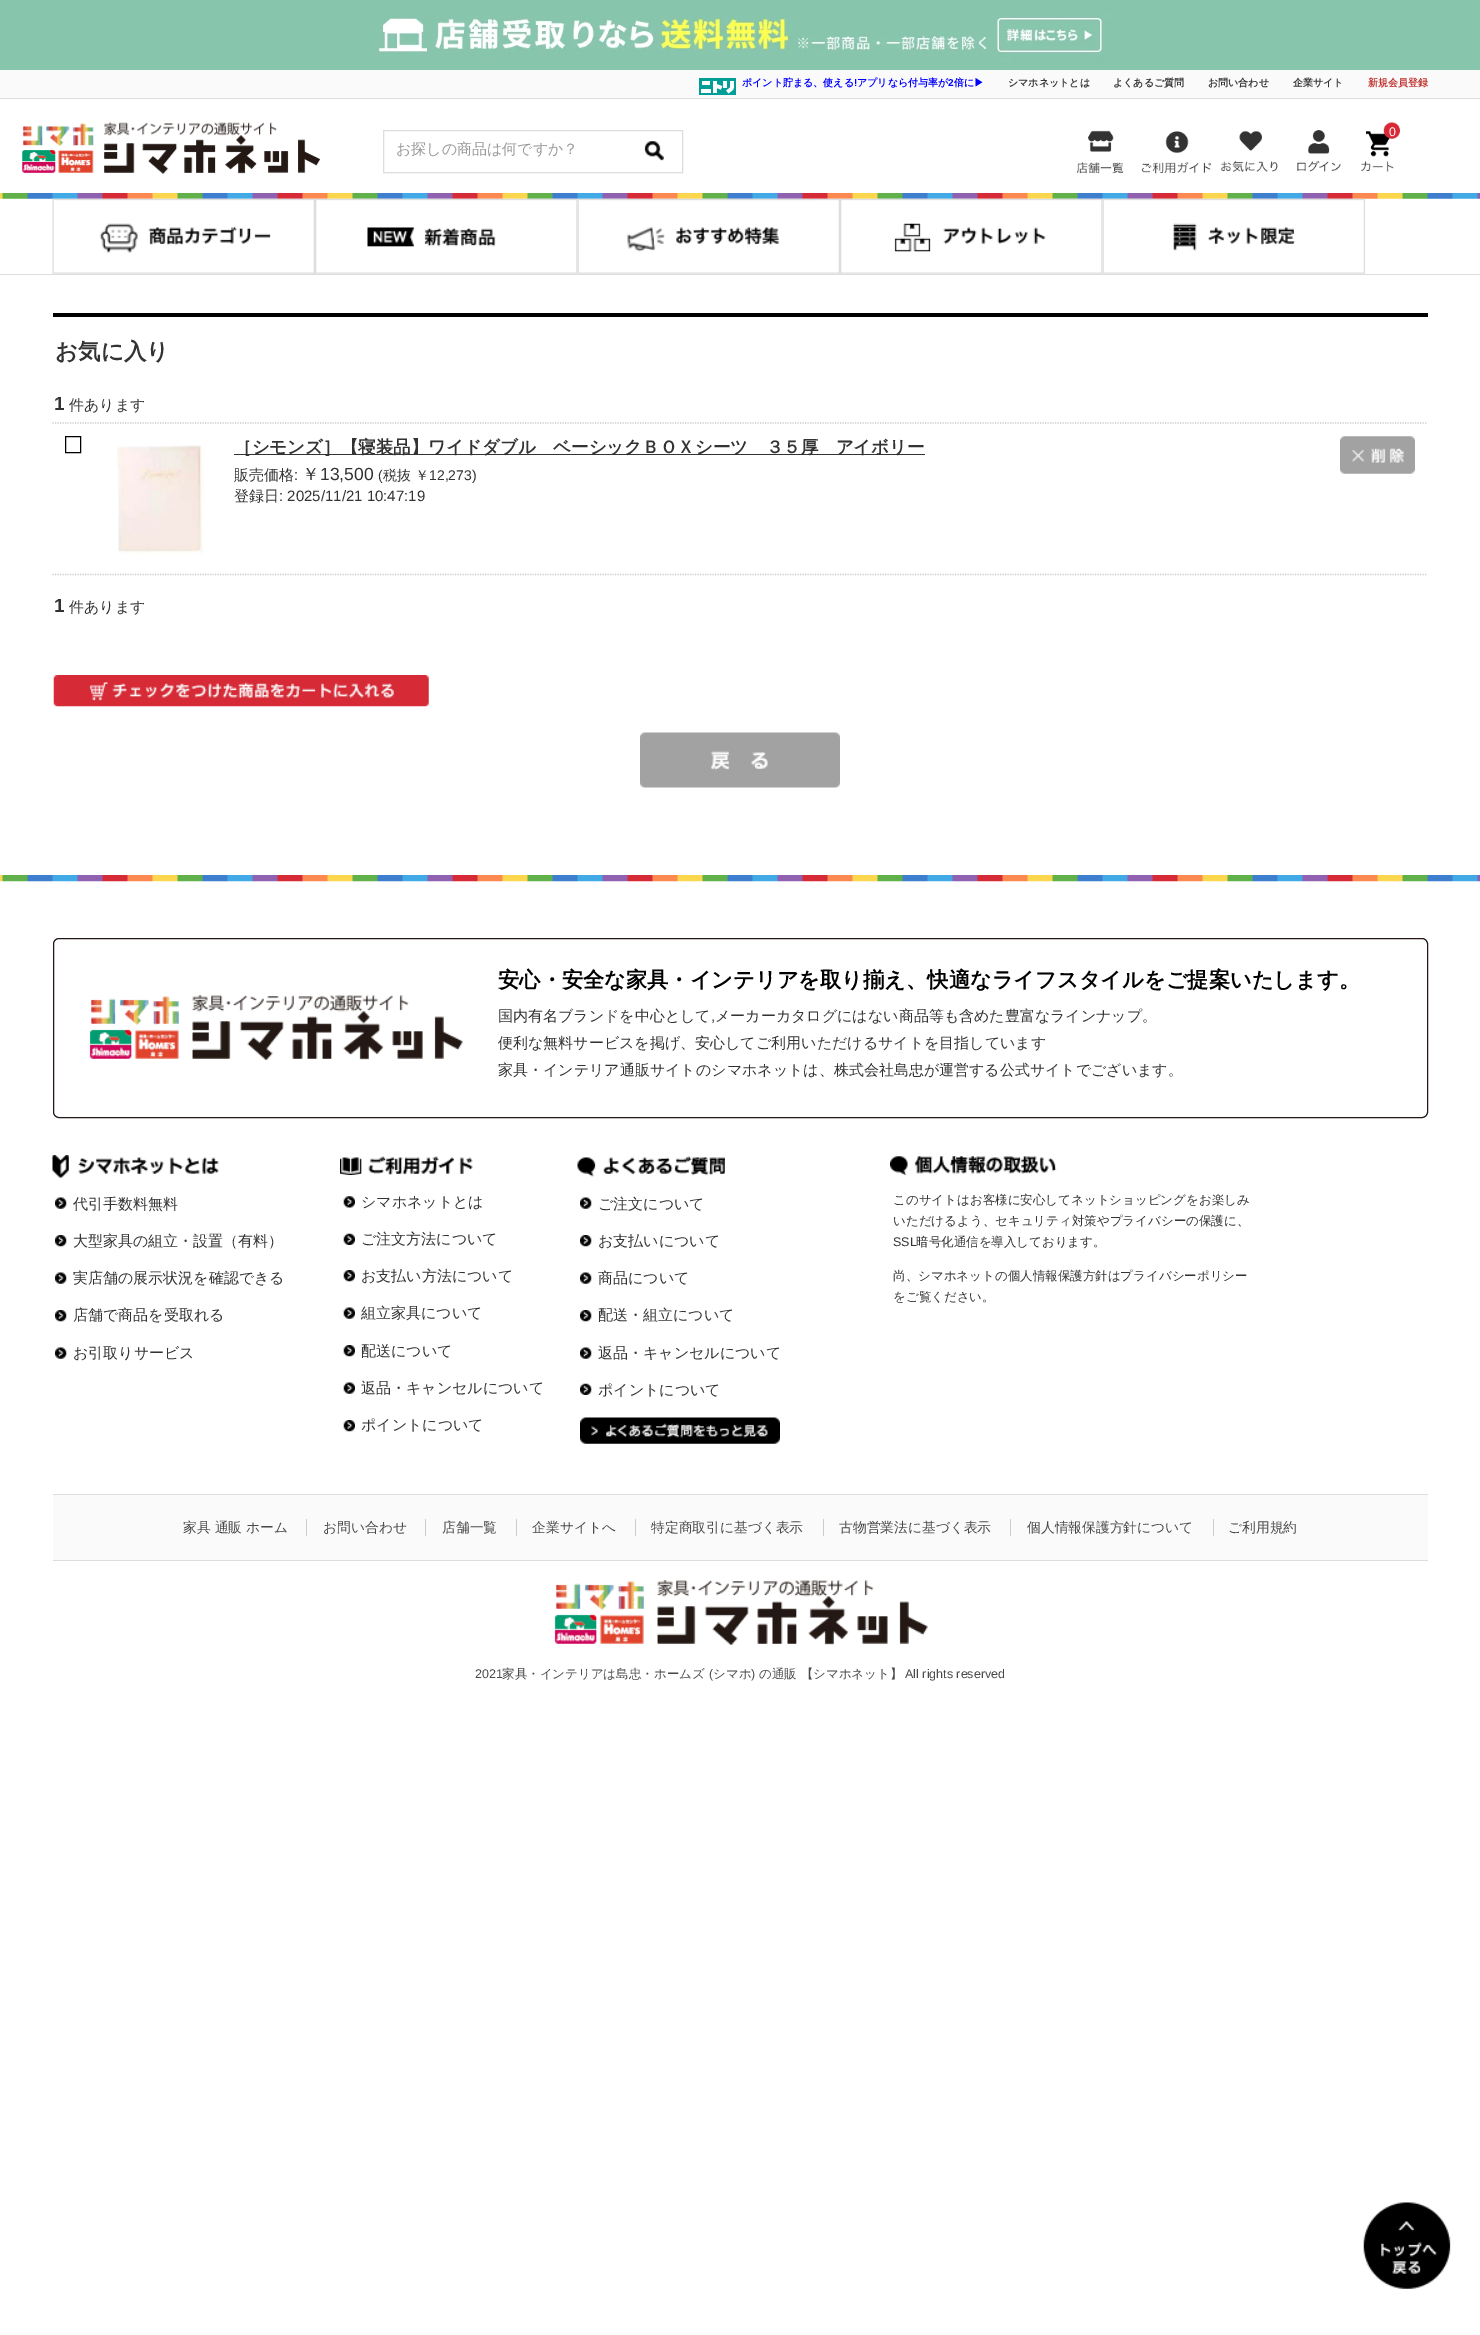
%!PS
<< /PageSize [1480 2335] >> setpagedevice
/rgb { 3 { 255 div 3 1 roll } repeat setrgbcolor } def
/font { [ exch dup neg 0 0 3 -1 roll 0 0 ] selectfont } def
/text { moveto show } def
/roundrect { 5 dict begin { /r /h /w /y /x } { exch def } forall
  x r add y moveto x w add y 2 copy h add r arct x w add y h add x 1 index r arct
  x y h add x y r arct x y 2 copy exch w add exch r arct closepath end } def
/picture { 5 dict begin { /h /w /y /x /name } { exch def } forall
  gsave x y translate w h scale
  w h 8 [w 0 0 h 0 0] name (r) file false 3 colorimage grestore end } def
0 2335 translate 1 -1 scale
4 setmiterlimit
255 255 255 rgb
0 0 1480 2335 rectfill
(img_01.rgb) 0 0 1480 70 picture
251 250 250 rgb
0 70 1480 28 rectfill
221 221 221 rgb
0 98 1480 1 rectfill
(img_02.rgb) 699 78 37 17 picture
(img_03.rgb) 22 122 298 52 picture
(img_04.rgb) 1076 130 48 44 picture
(img_05.rgb) 1141 131 71 43 picture
(img_06.rgb) 1220 130 58 42 picture
(img_07.rgb) 1297 130 44 42 picture
(img_08.rgb) 1361 122 39 50 picture
383.5 130.5 299 42 rectstroke
(img_09.rgb) 644 141 20 20 picture
(img_10.rgb) 0 193 1480 6 picture
0 274 1480 1 rectfill
(img_11.rgb) 52 198 263 76 picture
(img_12.rgb) 315 198 263 76 picture
(img_13.rgb) 577 198 263 76 picture
(img_14.rgb) 840 198 263 76 picture
(img_15.rgb) 1102 198 263 76 picture
0 0 0 rgb
53 313 1375 4 rectfill
204 204 204 rgb
1.2 setlinewidth
[1.25 1.25] 0 setdash
52.5 423 moveto 1375 0 rlineto stroke
52.5 574.5 moveto 1375 0 rlineto stroke
0 0 0 rgb
1 setlinewidth
[] 0 setdash
65.5 436.5 15 16 rectstroke
(img_16.rgb) 117 445 87 110 picture
51 51 51 rgb
234 454 691 1 rectfill
(img_17.rgb) 1340 436 75 38 picture
(img_18.rgb) 53 675 376 32 picture
(img_19.rgb) 640 732 200 56 picture
(img_20.rgb) 0 875 1480 7 picture
35 24 21 rgb
53.5 938.5 1374 179 5.5 roundrect stroke
(img_21.rgb) 89 995 374 65 picture
(img_22.rgb) 52 1155 167 23 picture
(img_23.rgb) 55 1197 12 12 picture
(img_24.rgb) 55 1235 12 12 picture
(img_23.rgb) 55 1272 12 12 picture
(img_24.rgb) 55 1310 12 12 picture
(img_23.rgb) 55 1347 12 12 picture
(img_25.rgb) 340 1156 133 19 picture
(img_26.rgb) 343 1196 12 12 picture
(img_27.rgb) 343 1233 12 12 picture
(img_28.rgb) 343 1270 12 12 picture
(img_29.rgb) 343 1307 12 12 picture
(img_28.rgb) 343 1345 12 12 picture
(img_29.rgb) 343 1382 12 12 picture
(img_28.rgb) 343 1420 12 12 picture
(img_30.rgb) 577 1156 148 21 picture
(img_31.rgb) 580 1197 12 12 picture
(img_32.rgb) 580 1235 12 12 picture
(img_31.rgb) 580 1272 12 12 picture
(img_32.rgb) 580 1310 12 12 picture
(img_31.rgb) 580 1347 12 12 picture
(img_33.rgb) 580 1383 12 12 picture
(img_34.rgb) 580 1417 200 27 picture
(img_35.rgb) 890 1156 167 20 picture
251 250 250 rgb
53 1495 1375 65 rectfill
221 221 221 rgb
53 1494 1375 1 rectfill
53 1560 1375 1 rectfill
204 204 204 rgb
306 1519 1 17 rectfill
425 1519 1 17 rectfill
516 1519 1 17 rectfill
635 1519 1 17 rectfill
823 1519 1 17 rectfill
1010 1519 1 17 rectfill
1213 1519 1 17 rectfill
(img_36.rgb) 554 1580 374 65 picture
(img_37.rgb) 1363 2202 88 87 picture
/WenQuanYiZenHei-Bold 10 font
0 0 255 rgb
(ポイント貯まる、使える) 742 86 text
/LiberationSans-Bold 10 font
(!) 854 86 text
/WenQuanYiZenHei-Bold 10 font
(アプリなら付与率が) 857 86 text
/LiberationSans-Bold 10 font
(2) 948 86 text
/WenQuanYiZenHei-Bold 10 font
(倍に▶) 954 86 text
51 51 51 rgb
(シマホネットとは) 1008 86 text
(よくあるご質問) 1113 86 text
(お問い合わせ) 1208 86 text
(企業サイト) 1293 86 text
192 52 47 rgb
(新規会員登録) 1368 86 text
/LiberationSans-Regular 12.5 font
255 255 255 rgb
(0) 1389 136 text
/WenQuanYiZenHei-Medium 15 font
153 153 153 rgb
(お探しの商品は何ですか？) 396 154 text
/WenQuanYiZenHei-Bold 22.5 font
51 51 51 rgb
(お気に入り) 55 359 text
/LiberationSans-Bold 19 font
(1) 54 410 text
/WenQuanYiZenHei-Medium 15 font
(件あります) 69 410 text
/WenQuanYiZenHei-Bold 17.5 font
(［シモンズ］【寝装品】ワイドダブル　ベーシックＢＯＸシーツ　３５厚　アイボリー) 234 453 text
/WenQuanYiZenHei-Medium 15 font
(販売価格) 234 480 text
/LiberationSans-Regular 15 font
(:) 294 480 text
/WenQuanYiZenHei-Medium 17.5 font
(￥) 302 480 text
/LiberationSans-Regular 17.5 font
(13,500) 320 480 text
/LiberationSans-Regular 14 font
(\() 378 480 text
/WenQuanYiZenHei-Medium 14 font
(税抜 ￥) 383 480 text
/LiberationSans-Regular 14 font
(12,273\)) 429 480 text
/WenQuanYiZenHei-Medium 15 font
(登録日) 234 501 text
/LiberationSans-Regular 15 font
(: 2025/11/21 10:47:19) 279 501 text
/LiberationSans-Bold 19 font
(1) 54 612 text
/WenQuanYiZenHei-Medium 15 font
(件あります) 69 612 text
/WenQuanYiZenHei-Bold 21.25 font
0 0 0 rgb
(安心・安全な家具・インテリアを取り揃え、快適なライフスタイルをご提案いたします。) 498 987 text
/WenQuanYiZenHei-Medium 15 font
51 51 51 rgb
(国内有名ブランドを中心として) 498 1021 text
/LiberationSans-Regular 15 font
(,) 711 1021 text
/WenQuanYiZenHei-Medium 15 font
(メーカーカタログにはない商品等も含めた豊富なラインナップ。) 715 1021 text
(便利な無料サービスを掲げ、安心してご利用いただけるサイトを目指しています) 498 1048 text
(家具・インテリア通販サイトのシマホネットは、株式会社島忠が運営する公式サイトでございます。) 498 1075 text
(代引手数料無料) 73 1209 text
(大型家具の組立・設置（有料）) 73 1246 text
(実店舗の展示状況を確認できる) 73 1283 text
(店舗で商品を受取れる) 73 1320 text
(お引取りサービス) 73 1358 text
(シマホネットとは) 361 1207 text
(ご注文方法について) 361 1244 text
(お支払い方法について) 361 1281 text
(組立家具について) 361 1318 text
(配送について) 361 1356 text
(返品・キャンセルについて) 361 1393 text
(ポイントについて) 361 1430 text
(ご注文について) 598 1209 text
(お支払いについて) 598 1246 text
(商品について) 598 1283 text
(配送・組立について) 598 1320 text
(返品・キャンセルについて) 598 1358 text
(ポイントについて) 598 1395 text
/WenQuanYiZenHei-Medium 12.5 font
(このサイトはお客様に安心してネットショッピングをお楽しみ) 893 1204 text
(いただけるよう、セキュリティ対策やプライバシーの保護に、) 893 1225 text
/LiberationSans-Regular 12.5 font
(SSL) 893 1246 text
/WenQuanYiZenHei-Medium 12.5 font
(暗号化通信を導入しております。) 916 1246 text
(尚、シマホネットの個人情報保護方針はプライバシーポリシー) 893 1280 text
(をご覧ください。) 893 1301 text
/WenQuanYiZenHei-Medium 13.75 font
73 73 73 rgb
(家具 通販 ホーム) 183 1532 text
(お問い合わせ) 323 1532 text
(店舗一覧) 442 1532 text
(企業サイトへ) 532 1532 text
(特定商取引に基づく表示) 651 1532 text
(古物営業法に基づく表示) 839 1532 text
(個人情報保護方針について) 1027 1532 text
(ご利用規約) 1228 1532 text
/LiberationSans-Regular 12.5 font
(2021) 475 1678 text
/WenQuanYiZenHei-Medium 12.5 font
(家具・インテリアは島忠・ホームズ) 502 1678 text
/LiberationSans-Regular 12.5 font
(\() 709 1678 text
/WenQuanYiZenHei-Medium 12.5 font
(シマホ) 713 1678 text
/LiberationSans-Regular 12.5 font
(\)) 751 1678 text
/WenQuanYiZenHei-Medium 12.5 font
(の通販 【シマホネット】) 759 1678 text
/LiberationSans-Regular 12.5 font
(All rights reserved) 905 1678 text
showpage
